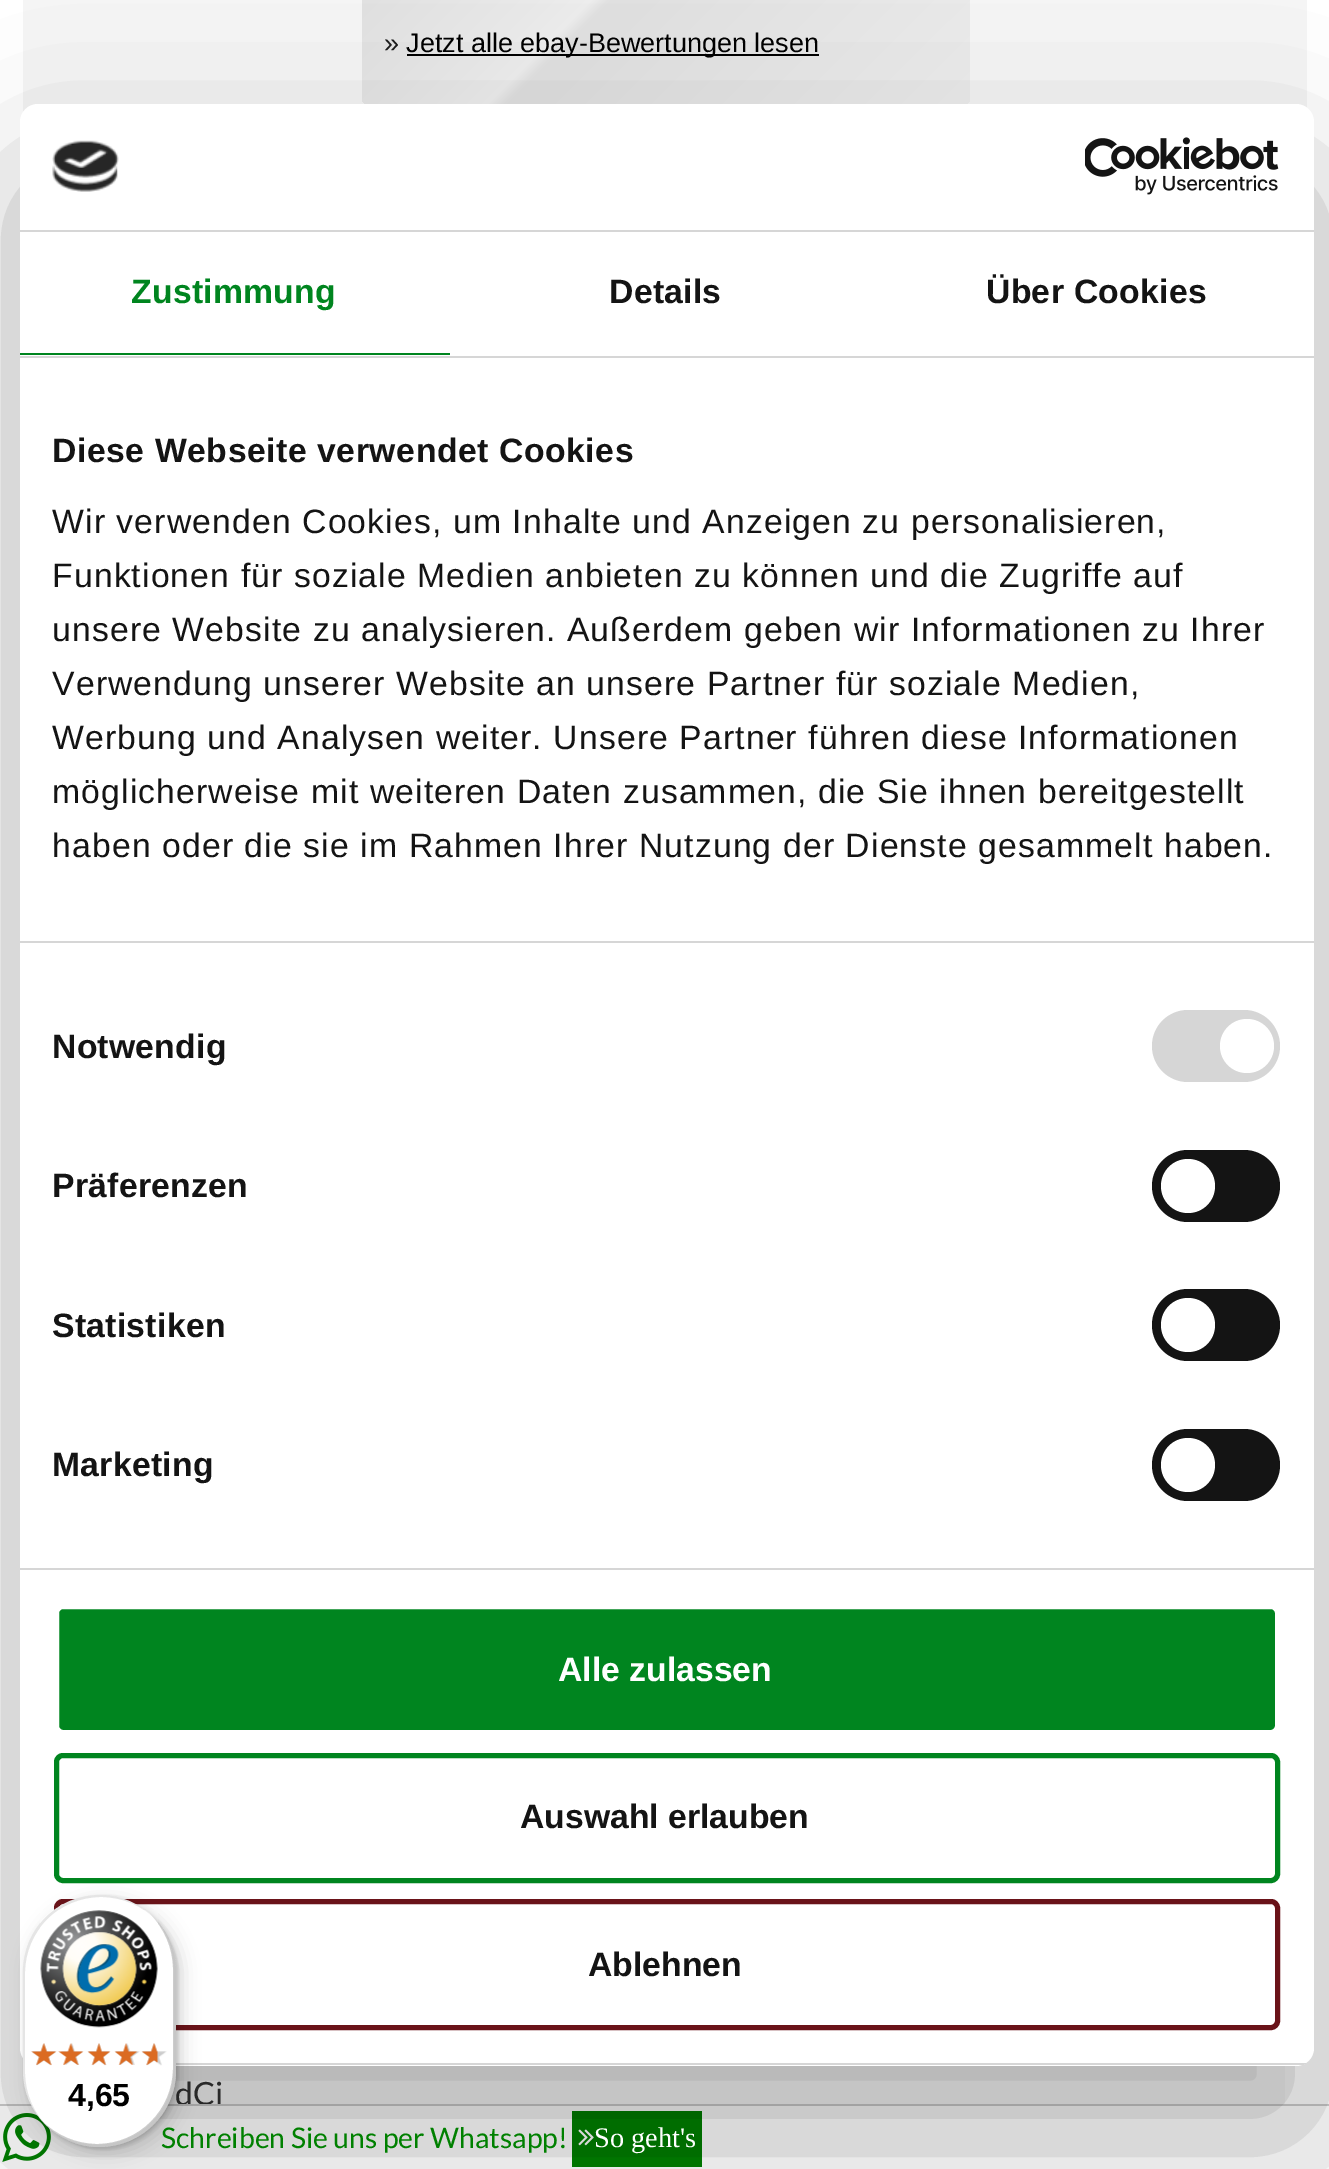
%!PS
<< /PageSize [1329 2169] /PageUsesTransparency true >> setpagedevice
/rgb { 3 { 255 div 3 1 roll } repeat setrgbcolor } def
/font { [ exch dup neg 0 0 3 -1 roll 0 0 ] selectfont } def
/text { moveto show } def
/alpha { dup .setfillconstantalpha .setstrokeconstantalpha } def
/circle { newpath 0 360 arc closepath } def
/roundrect { 5 dict begin { /r /h /w /y /x } { exch def } forall
  x r add y moveto x w add y 2 copy h add r arct x w add y h add x 1 index r arct
  x y h add x y r arct x y 2 copy exch w add exch r arct closepath end } def
/shadow { 12 dict begin { /a /b /q /h /w /y /x } { exch def } forall gsave /was 0 def
  9 -2 -9 { dup b mul 4 div /e exch def 1 sub .425 mul 2.718 exch exp 1 add a .99 .min exch div /now exch def
    1 1 now sub 1 was sub div sub alpha /was now def
    w h .min e 2 mul add 0 gt { x e sub y e sub w e 2 mul add h e 2 mul add
      q e add b .6 mul add w h .min 2 div e add .min 0 .max roundrect fill } if } for grestore end } def
/picture { 5 dict begin { /h /w /y /x /name } { exch def } forall
  gsave x y translate w h scale
  w h 8 [w 0 0 h 0 0] name (r) file false 3 colorimage grestore end } def
0 .pushpdf14devicefilter
0 2169 translate 1 -1 scale
4 setmiterlimit
255 255 255 rgb
0 0 1329 2169 rectfill
245 245 245 rgb
23 0 1284 112 rectfill
gsave 362 -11 608 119 11 roundrect clip newpath
<< /ShadingType 2 /ColorSpace /DeviceRGB /Coords [424 -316 908 169] /Extend [true true] /Function << /FunctionType 3 /Domain [0 1] /Functions [<< /FunctionType 2 /Domain [0 1] /C0 [0.827 0.827 0.827] /C1 [0.929 0.929 0.929] /N 1 >> << /FunctionType 2 /Domain [0 1] /C0 [0.929 0.929 0.929] /C1 [0.878 0.878 0.878] /N 1 >> << /FunctionType 2 /Domain [0 1] /C0 [0.878 0.878 0.878] /C1 [0.929 0.929 0.929] /N 1 >>] /Bounds [0.5 0.52] /Encode [0 1 0 1 0 1] >> >> shfill grestore
0 0 0 rgb
407 54 412 2 rectfill
249 249 249 rgb
168 2066 1117 38 rectfill
(img_14.rgb) 2 2113 49 49 picture
0 128 0 rgb
572 2111 130 56 rectfill
(img_15.rgb) 578 2129 16 17 picture
/LiberationSans-Regular 27 font
27 27 27 rgb
(») 384 52 text
0 0 0 rgb
(Jetzt alle ebay-Bewertungen lesen) 406 52 text
/Lato-Regular 32 font
51 51 51 rgb
(dCi) 175 2105 text
204 204 204 rgb
0 2104 1329 2 rectfill
0 0 0 rgb
20 176 1294 1962 18 76.5 0.3 shadow
255 255 255 rgb
20 104 1294 1962 18 roundrect fill
106 19 25 rgb
5 setlinewidth
56.5 1901.5 1221 126 6.5 roundrect stroke
gsave
20 104 1294 1962 18 roundrect clip newpath
214 214 214 rgb
176 2063 1138 2 rectfill
grestore
0 0 0 rgb
25 1897 153 252 76.5 2 0.15 shadow
0 133 31 rgb
56.5 1755.5 1221 125 6.5 roundrect stroke
0 0 0 rgb
29 1901 153 252 76.5 9 0.15 shadow
/LiberationSans-Bold 33.75 font
20 20 20 rgb
(Ablehnen) 588 1976 text
(Auswahl erlauben) 520 1828 text
0 133 31 rgb
56.5 1606.5 1221 126 6.5 roundrect gsave fill grestore
255 255 255 rgb
stroke
(Alle zulassen) 558 1681 text
20 20 20 rgb
1152 1429 128 72 36 roundrect fill
255 255 255 rgb
1188 1465 27 circle fill
20 20 20 rgb
1152 1289 128 72 36 roundrect fill
255 255 255 rgb
1188 1325 27 circle fill
20 20 20 rgb
1152 1150 128 72 36 roundrect fill
255 255 255 rgb
1188 1186 27 circle fill
214 214 214 rgb
1152 1010 128 72 36 roundrect fill
255 255 255 rgb
1247 1046 27 circle fill
/LiberationSans-Regular 33.75 font
20 20 20 rgb
52 857 moveto 1.12 0 (haben oder die sie im Rahmen Ihrer Nutzung der Dienste gesammelt haben.) ashow
52 803 moveto 1.12 0 (möglicherweise mit weiteren Daten zusammen, die Sie ihnen bereitgestellt) ashow
52 749 moveto 1.12 0 (Werbung und Analysen weiter. Unsere Partner führen diese Informationen) ashow
52 695 moveto 1.12 0 (Verwendung unserer Website an unsere Partner für soziale Medien,) ashow
52 641 moveto 1.12 0 (unsere Website zu analysieren. Außerdem geben wir Informationen zu Ihrer) ashow
52 587 moveto 1.12 0 (Funktionen für soziale Medien anbieten zu können und die Zugriffe auf) ashow
52 533 moveto 1.12 0 (Wir verwenden Cookies, um Inhalte und Anzeigen zu personalisieren,) ashow
/LiberationSans-Bold 33.75 font
52 462 moveto 0.55 0 (Diese Webseite verwendet Cookies) ashow
214 214 214 rgb
20 941 1294 2 rectfill
20 20 20 rgb
986 303 moveto 0.25 0 (Über Cookies) ashow
609 303 moveto 0.25 0 (Details) ashow
0 133 31 rgb
131 303 moveto 0.25 0 (Zustimmung) ashow
20 353 430 2 rectfill
214 214 214 rgb
20 356 1294 2 rectfill
20 20 20 rgb
52 1476 moveto 0.25 0 (Marketing) ashow
52 1337 moveto 0.25 0 (Statistiken) ashow
52 1197 moveto 0.25 0 (Präferenzen) ashow
52 1058 moveto 0.25 0 (Notwendig) ashow
214 214 214 rgb
20 1568 1294 2 rectfill
(img_02.rgb) 1085 137 194 58 picture
(img_01.rgb) 52 140 67 52 picture
20 230 1294 2 rectfill
/Lato-Regular 28.4 font
0 128 0 rgb
(Schreiben Sie uns per Whatsapp!) 161 2148 text
255 255 255 rgb
23 1895 153 252 76.5 roundrect fill
0.1 alpha
0 0 0 rgb
101 1897 moveto 22 0 42 9 56 24 rcurveto -14 -16 -35 -26 -57 -26 rcurveto -43 0 -77 34 -77 77 rcurveto 0 98 rlineto 0 23 10 44 26 58 rcurveto -15 -14 -24 -34 -24 -56 rcurveto 0 -99 rlineto 0 -42 34 -76 76 -76 rcurveto closepath fill
0.2 alpha
42 2121 moveto 14 16 35 26 58 26 rcurveto 42 0 76 -34 76 -77 rcurveto 0 -98 rlineto 0 -23 -10 -44 -26 -58 rcurveto 14 14 23 34 23 55 rcurveto 0 99 rlineto 0 42 -34 76 -76 76 rcurveto -21 0 -41 -9 -55 -23 rcurveto closepath fill
50 50 50 rgb
47 2126 moveto 13 13 32 21 53 21 rcurveto 42 0 76 -34 76 -77 rcurveto 0 -98 rlineto 0 -21 -8 -40 -21 -53 rcurveto 12 13 19 31 19 51 rcurveto 0 99 rlineto 0 42 -34 76 -76 76 rcurveto -20 0 -38 -7 -51 -19 rcurveto closepath fill
0.3 alpha
255 255 255 rgb
42 2121 moveto 14 16 35 26 58 26 rcurveto 42 0 76 -34 76 -77 rcurveto 0 -98 rlineto 0 -23 -10 -44 -26 -58 rcurveto 15 14 24 34 24 56 rcurveto 0 99 rlineto 0 42 -34 76 -76 76 rcurveto -22 0 -42 -9 -56 -24 rcurveto closepath fill
1 alpha
(img_08.rgb) 142 2043 25 23 picture
(img_13.rgb) 141 2043 17 22 picture
(img_07.rgb) 115 2043 25 22 picture
(img_12.rgb) 114 2043 24 22 picture
(img_06.rgb) 88 2043 22 23 picture
(img_11.rgb) 87 2043 24 22 picture
(img_05.rgb) 61 2043 22 22 picture
(img_10.rgb) 58 2043 26 22 picture
(img_04.rgb) 31 2043 25 23 picture
(img_09.rgb) 31 2043 26 22 picture
/LiberationSans-Bold 32 font
0 0 0 rgb
(4,65) 68 2106 text
(img_03.rgb) 40 1910 118 118 picture
/LiberationSerif-Regular 28.4 font
255 255 255 rgb
(So geht's) 594 2147 text
.poppdf14devicefilter showpage
